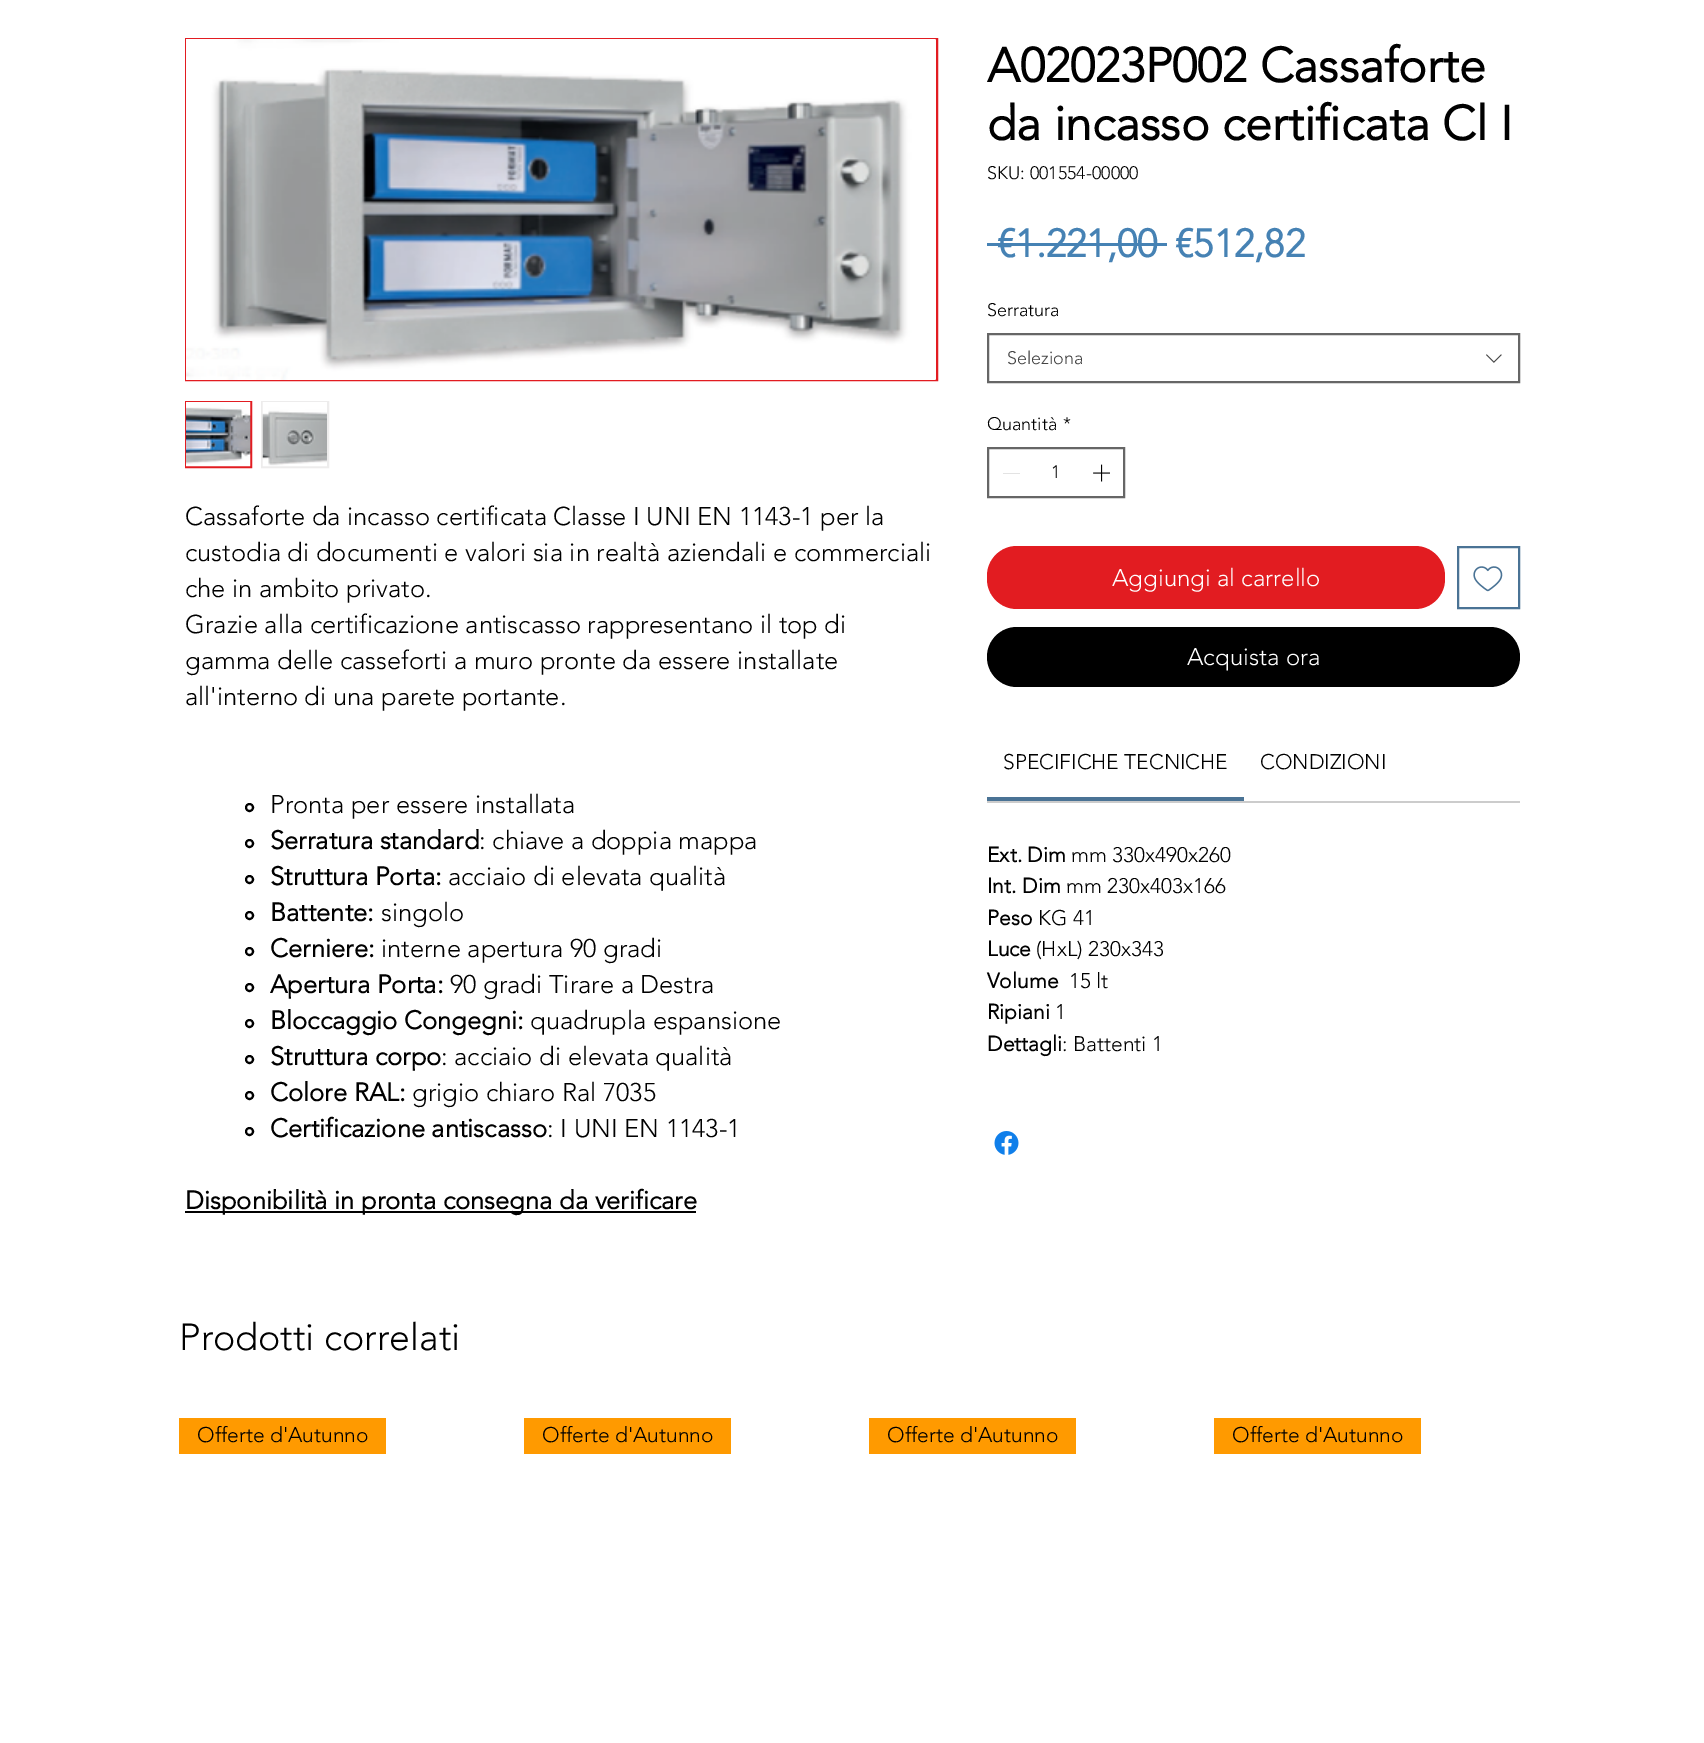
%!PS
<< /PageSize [1704 1743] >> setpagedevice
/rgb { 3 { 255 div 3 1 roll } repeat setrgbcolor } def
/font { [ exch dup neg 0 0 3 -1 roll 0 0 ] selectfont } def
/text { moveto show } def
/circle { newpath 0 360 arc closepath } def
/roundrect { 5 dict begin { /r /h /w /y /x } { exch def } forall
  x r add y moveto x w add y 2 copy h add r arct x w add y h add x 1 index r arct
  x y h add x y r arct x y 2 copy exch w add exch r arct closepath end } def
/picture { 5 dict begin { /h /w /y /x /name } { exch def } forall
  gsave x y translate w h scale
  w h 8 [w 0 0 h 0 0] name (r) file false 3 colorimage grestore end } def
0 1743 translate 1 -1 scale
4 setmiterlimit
255 255 255 rgb
0 0 1704 1743 rectfill
226 28 33 rgb
2 setlinewidth
186 39 751 341 rectstroke
(img_01.rgb) 186 39 750 341 picture
186 402 65 65 rectstroke
(img_02.rgb) 186 402 65 65 picture
237 236 236 rgb
262 402 66 65 rectstroke
(img_03.rgb) 262 402 65 65 picture
0 0 0 rgb
249.5 807.5 3.5 circle stroke
249.5 843.5 3.5 circle stroke
249.5 879.5 3.5 circle stroke
249.5 915.5 3.5 circle stroke
249.5 951.5 3.5 circle stroke
249.5 987.5 3.5 circle stroke
249.5 1023.5 3.5 circle stroke
249.5 1059.5 3.5 circle stroke
249.5 1095.5 3.5 circle stroke
249.5 1131.5 3.5 circle stroke
185 1211 511 2 rectfill
70 130 180 rgb
987 243 180 3 rectfill
102 102 102 rgb
988 334 531 48 rectstroke
(img_04.rgb) 1486 354 16 9 picture
988 448 136 49 rectstroke
227 227 227 rgb
1003 473 17 1 rectfill
(img_05.rgb) 1093 464 17 18 picture
226 28 33 rgb
987 546 458 63 30 roundrect fill
74 115 149 rgb
1458 547 61 61 rectstroke
(img_06.rgb) 1473 566 30 26 picture
0 0 0 rgb
987 627 533 60 30 roundrect fill
204 204 204 rgb
987 801 533 2 rectfill
74 115 149 rgb
987 797 257 4 rectfill
(img_07.rgb) 994 1131 25 24 picture
255 154 0 rgb
179 1418 207 36 rectfill
524 1418 207 36 rectfill
869 1418 207 36 rectfill
1214 1418 207 36 rectfill
/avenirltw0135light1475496-Light 25.5 font
0 0 0 rgb
(Cassaforte da incasso certificata Classe I UNI EN 1143-1 per la) 185 525 text
(custodia di documenti e valori sia in realtà aziendali e commerciali) 185 561 text
(che in ambito privato.) 185 597 text
(Grazie alla certificazione antiscasso rappresentano il top di) 185 633 text
(gamma delle casseforti a muro pronte da essere installate) 185 669 text
(all'interno di una parete portante.) 185 705 text
(Pronta per essere installata) 270 813 text
/avenirltw0135light1475496-Bold 25.5 font
(Serratura standard) 270 849 text
/avenirltw0135light1475496-Light 25.5 font
(: chiave a doppia mappa) 479 849 text
/avenirltw0135light1475496-Bold 25.5 font
(Struttura Porta:) 270 885 text
/avenirltw0135light1475496-Light 25.5 font
(acciaio di elevata qualità) 448 885 text
/avenirltw0135light1475496-Bold 25.5 font
(Battente:) 270 921 text
/avenirltw0135light1475496-Light 25.5 font
(singolo) 381 921 text
/avenirltw0135light1475496-Bold 25.5 font
(Cerniere:) 270 957 text
/avenirltw0135light1475496-Light 25.5 font
(interne apertura 90 gradi) 381 957 text
/avenirltw0135light1475496-Bold 25.5 font
(Apertura Porta:) 270 993 text
/avenirltw0135light1475496-Light 25.5 font
(90 gradi Tirare a Destra) 450 993 text
/avenirltw0135light1475496-Bold 25.5 font
(Bloccaggio Congegni:) 270 1029 text
/avenirltw0135light1475496-Light 25.5 font
(quadrupla espansione) 530 1029 text
/avenirltw0135light1475496-Bold 25.5 font
(Struttura corpo) 270 1065 text
/avenirltw0135light1475496-Light 25.5 font
(: acciaio di elevata qualità) 441 1065 text
/avenirltw0135light1475496-Bold 25.5 font
(Colore RAL:) 270 1101 text
/avenirltw0135light1475496-Light 25.5 font
(grigio chiaro Ral 7035) 412 1101 text
/avenirltw0135light1475496-Bold 25.5 font
(Certificazione antiscasso) 270 1137 text
/avenirltw0135light1475496-Light 25.5 font
(: I UNI EN 1143-1) 547 1137 text
/avenirltw0135light1475496-Bold 25.5 font
(Disponibilità in pronta consegna da verificare) 185 1209 text
/avenirltw0135light1475496-Bold 48 font
(A02023P002 Cassaforte) 987 82 text
(da incasso certificata Cl I) 987 140 text
/avenirltw0135light1475496-Light 18 font
(SKU: 001554-00000) 987 179 text
/avenirltw0135light1475496-Bold 39 font
70 130 180 rgb
(€1.221,00) 997 257 text
(€512,82) 1175 257 text
/avenirltw0135light1475496-Light 18 font
0 0 0 rgb
(Serratura) 987 316 text
68 68 68 rgb
(Seleziona) 1007 364 text
0 0 0 rgb
(Quantità) 987 430 text
(*) 1063 430 text
(1) 1051 478 text
/avenirltw0135light1475496-Light 24 font
255 255 255 rgb
(Aggiungi al carrello) 1112 586 text
(Acquista ora) 1187 665 text
/avenirltw0135light1475496-Light 21 font
0 0 0 rgb
(SPECIFICHE TECNICHE) 1003 769 text
(CONDIZIONI) 1260 769 text
/avenirltw0135light1475496-Bold 21 font
(Ext. Dim) 987 862 text
/avenirltw0135light1475496-Light 21 font
(mm 330x490x260) 1071 862 text
/avenirltw0135light1475496-Bold 21 font
(Int. Dim) 987 893 text
/avenirltw0135light1475496-Light 21 font
(mm 230x403x166) 1066 893 text
/avenirltw0135light1475496-Bold 21 font
(Peso) 987 925 text
/avenirltw0135light1475496-Light 21 font
(KG 41) 1038 925 text
/avenirltw0135light1475496-Bold 21 font
(Luce) 987 956 text
/avenirltw0135light1475496-Light 21 font
(\(HxL\) 230x343) 1036 956 text
/avenirltw0135light1475496-Bold 21 font
(Volume) 987 988 text
/avenirltw0135light1475496-Light 21 font
(15 lt) 1069 988 text
/avenirltw0135light1475496-Bold 21 font
(Ripiani) 987 1019 text
/avenirltw0135light1475496-Light 21 font
(1) 1055 1019 text
/avenirltw0135light1475496-Bold 21 font
(Dettagli) 987 1051 text
/avenirltw0135light1475496-Light 21 font
(: Battenti 1) 1062 1051 text
/avenirltw0135light1475496-Light 37.5 font
(Prodotti correlati) 179 1350 text
/avenirltw0135light1475496-Light 21 font
(Offerte d'Autunno) 197 1442 text
(Offerte d'Autunno) 542 1442 text
(Offerte d'Autunno) 887 1442 text
(Offerte d'Autunno) 1232 1442 text
showpage
